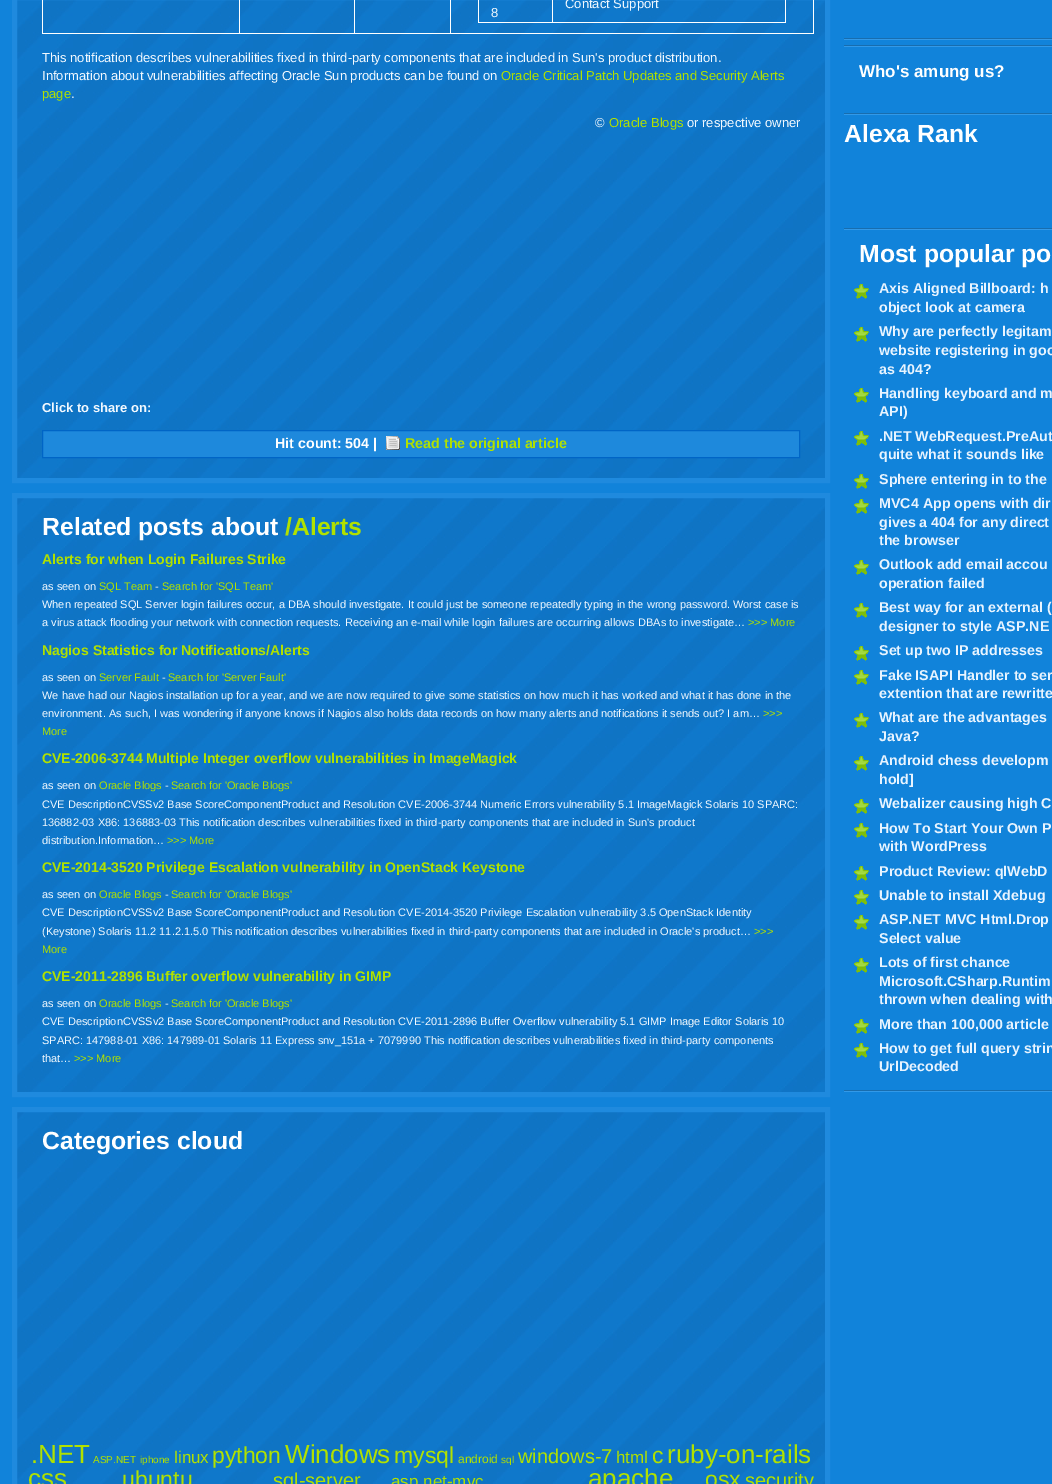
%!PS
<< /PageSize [1052 1484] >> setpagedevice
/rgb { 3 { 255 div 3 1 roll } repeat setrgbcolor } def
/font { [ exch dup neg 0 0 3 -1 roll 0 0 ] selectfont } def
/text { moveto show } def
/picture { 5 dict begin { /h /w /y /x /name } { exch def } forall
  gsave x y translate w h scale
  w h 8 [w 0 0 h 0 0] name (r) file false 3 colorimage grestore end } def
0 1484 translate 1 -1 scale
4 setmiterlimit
17 131 218 rgb
0 0 1052 1484 rectfill
(img_01.rgb) 17 0 808 478 picture
31 138 222 rgb
5 setlinewidth
14.5 -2.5 813 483 rectstroke
255 255 255 rgb
813 0 1 34 rectfill
450 33 364 1 rectfill
450 0 1 34 rectfill
354 33 97 1 rectfill
354 0 1 34 rectfill
239 33 116 1 rectfill
239 0 1 34 rectfill
42 33 198 1 rectfill
42 0 1 34 rectfill
785 0 1 23 rectfill
552 22 234 1 rectfill
552 0 1 23 rectfill
478 22 75 1 rectfill
478 0 1 23 rectfill
30 137 220 rgb
42.5 430.5 moveto 757 0 rlineto 0 27 rlineto -757 0 rlineto closepath gsave fill grestore
0 101 198 rgb
1 setlinewidth
stroke
(img_02.rgb) 386 436 14 14 picture
(img_03.rgb) 17 498 808 594 picture
31 138 222 rgb
5 setlinewidth
14.5 495.5 813 599 rectstroke
(img_04.rgb) 17 1112 808 372 picture
14.5 1109.5 813 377 rectstroke
(img_05.rgb) 844 38 208 2 picture
(img_05.rgb) 844 45 208 2 picture
(img_05.rgb) 844 113 208 2 picture
(img_05.rgb) 844 228 208 2 picture
(img_05.rgb) 844 1090 208 2 picture
(img_06.rgb) 854 284 15 15 picture
(img_06.rgb) 854 327 15 15 picture
(img_06.rgb) 854 388 15 15 picture
(img_06.rgb) 854 431 15 15 picture
(img_06.rgb) 854 474 15 15 picture
(img_06.rgb) 854 499 15 15 picture
(img_06.rgb) 854 560 15 15 picture
(img_06.rgb) 854 603 15 15 picture
(img_06.rgb) 854 646 15 15 picture
(img_06.rgb) 854 670 15 15 picture
(img_06.rgb) 854 713 15 15 picture
(img_06.rgb) 854 756 15 15 picture
(img_06.rgb) 854 799 15 15 picture
(img_06.rgb) 854 823 15 15 picture
(img_06.rgb) 854 866 15 15 picture
(img_06.rgb) 854 890 15 15 picture
(img_06.rgb) 854 915 15 15 picture
(img_06.rgb) 854 958 15 15 picture
(img_06.rgb) 854 1019 15 15 picture
(img_06.rgb) 854 1043 15 15 picture
/LiberationSans-Regular 13 font
242 249 255 rgb
(Contact Support) 565 8 text
(8) 491 17 text
(This notification describes vulnerabilities fixed in third-party components that are included in Sun's product distribution.) 42 62 text
(Information about vulnerabilities affecting Oracle Sun products can be found on) 42 80 text
177 225 0 rgb
(Oracle Critical Patch Updates and Security Alerts) 501 80 text
(page) 42 98 text
242 249 255 rgb
(.) 71 98 text
(©) 595 127 text
177 225 0 rgb
(Oracle Blogs) 609 127 text
242 249 255 rgb
(or respective owner) 687 127 text
/LiberationSans-Bold 13 font
(Click to share on:) 42 412 text
/LiberationSans-Bold 14.25 font
255 255 255 rgb
(Hit count: 504 |) 275 448 text
177 225 0 rgb
(Read the original article) 405 448 text
/LiberationSans-Bold 24.75 font
255 255 255 rgb
(Related posts about) 42 535 text
177 225 0 rgb
(/Alerts) 285 535 text
/LiberationSans-Bold 14 font
(Alerts for when Login Failures Strike) 42 564 text
/LiberationSans-Regular 11 font
242 249 255 rgb
(as seen on) 42 590 text
177 225 0 rgb
(SQL Team) 99 590 text
242 249 255 rgb
(-) 155 590 text
177 225 0 rgb
(Search for 'SQL Team') 162 590 text
242 249 255 rgb
(When repeated SQL Server login failures occur, a DBA should investigate. It could just be someone repeatedly typing in the wrong password. Worst case is) 42 608 text
(a virus attack flooding your network with connection requests. Receiving an e-mail while login failures are occurring allows DBAs to investigate…) 42 626 text
177 225 0 rgb
(>>> More) 748 626 text
/LiberationSans-Bold 14 font
(Nagios Statistics for Notifications/Alerts) 42 655 text
/LiberationSans-Regular 11 font
242 249 255 rgb
(as seen on) 42 681 text
177 225 0 rgb
(Server Fault) 99 681 text
242 249 255 rgb
(-) 162 681 text
177 225 0 rgb
(Search for 'Server Fault') 168 681 text
242 249 255 rgb
(We have had our Nagios installation up for a year, and we are now required to give some statistics on how much it has worked and what it has done in the) 42 699 text
(environment. As such, I was wondering if anyone knows if Nagios also holds data records on how many alerts and notifications it sends out? I am…) 42 717 text
177 225 0 rgb
(>>>) 763 717 text
(More) 42 735 text
/LiberationSans-Bold 14 font
(CVE-2006-3744 Multiple Integer overflow vulnerabilities in ImageMagick) 42 763 text
/LiberationSans-Regular 11 font
242 249 255 rgb
(as seen on) 42 789 text
177 225 0 rgb
(Oracle Blogs) 99 789 text
242 249 255 rgb
(-) 165 789 text
177 225 0 rgb
(Search for 'Oracle Blogs') 171 789 text
242 249 255 rgb
(CVE DescriptionCVSSv2 Base ScoreComponentProduct and Resolution CVE-2006-3744 Numeric Errors vulnerability 5.1 ImageMagick Solaris 10 SPARC:) 42 808 text
(136882-03 X86: 136883-03 This notification describes vulnerabilities fixed in third-party components that are included in Sun's product) 42 826 text
(distribution.Information…) 42 844 text
177 225 0 rgb
(>>> More) 167 844 text
/LiberationSans-Bold 14 font
(CVE-2014-3520 Privilege Escalation vulnerability in OpenStack Keystone) 42 872 text
/LiberationSans-Regular 11 font
242 249 255 rgb
(as seen on) 42 898 text
177 225 0 rgb
(Oracle Blogs) 99 898 text
242 249 255 rgb
(-) 165 898 text
177 225 0 rgb
(Search for 'Oracle Blogs') 171 898 text
242 249 255 rgb
(CVE DescriptionCVSSv2 Base ScoreComponentProduct and Resolution CVE-2014-3520 Privilege Escalation vulnerability 3.5 OpenStack Identity) 42 916 text
(\(Keystone\) Solaris 11.2 11.2.1.5.0 This notification describes vulnerabilities fixed in third-party components that are included in Oracle's product…) 42 935 text
177 225 0 rgb
(>>>) 754 935 text
(More) 42 953 text
/LiberationSans-Bold 14 font
(CVE-2011-2896 Buffer overflow vulnerability in GIMP) 42 981 text
/LiberationSans-Regular 11 font
242 249 255 rgb
(as seen on) 42 1007 text
177 225 0 rgb
(Oracle Blogs) 99 1007 text
242 249 255 rgb
(-) 165 1007 text
177 225 0 rgb
(Search for 'Oracle Blogs') 171 1007 text
242 249 255 rgb
(CVE DescriptionCVSSv2 Base ScoreComponentProduct and Resolution CVE-2011-2896 Buffer Overflow vulnerability 5.1 GIMP Image Editor Solaris 10) 42 1025 text
(SPARC: 147988-01 X86: 147989-01 Solaris 11 Express snv_151a + 7079990 This notification describes vulnerabilities fixed in third-party components) 42 1044 text
(that…) 42 1062 text
177 225 0 rgb
(>>> More) 74 1062 text
/LiberationSans-Bold 24.75 font
255 255 255 rgb
(Categories cloud) 42 1149 text
/LiberationSans-Regular 26 font
177 225 0 rgb
(.NET) 31 1463 text
/LiberationSans-Regular 10 font
(ASP.NET) 93 1463 text
(iphone) 140 1463 text
/LiberationSans-Regular 17 font
(linux) 174 1463 text
/LiberationSans-Regular 23 font
(python) 212 1463 text
/LiberationSans-Regular 26 font
(Windows) 285 1463 text
/LiberationSans-Regular 23 font
(mysql) 394 1463 text
/LiberationSans-Regular 12 font
(android) 458 1463 text
/LiberationSans-Regular 10 font
(sql) 501 1463 text
/LiberationSans-Regular 20 font
(windows-7) 518 1463 text
/LiberationSans-Regular 17 font
(html) 616 1463 text
/LiberationSans-Regular 23 font
(c) 652 1463 text
/LiberationSans-Regular 26 font
(ruby-on-rails) 667 1463 text
(css) 28 1487 text
/LiberationSans-Regular 23 font
(ubuntu) 122 1487 text
/LiberationSans-Regular 20 font
(sql-server) 273 1487 text
/LiberationSans-Regular 17 font
(asp.net-mvc) 391 1487 text
/LiberationSans-Regular 26 font
(apache) 588 1487 text
/LiberationSans-Regular 23 font
(osx) 705 1487 text
/LiberationSans-Regular 20 font
(security) 745 1487 text
/LiberationSans-Bold 17 font
255 255 255 rgb
(Who's amung us?) 859 77 text
/LiberationSans-Bold 24.75 font
(Alexa Rank) 844 142 text
(Most popular po) 859 262 text
/LiberationSans-Bold 14.25 font
232 244 255 rgb
(Axis Aligned Billboard: h) 879 293 text
(object look at camera) 879 312 text
(Why are perfectly legitam) 879 336 text
(website registering in goo) 879 355 text
(as 404?) 879 374 text
(Handling keyboard and m) 879 398 text
(API\)) 879 416 text
(.NET WebRequest.PreAut) 879 441 text
(quite what it sounds like) 879 459 text
(Sphere entering in to the) 879 484 text
(MVC4 App opens with dir) 879 508 text
(gives a 404 for any direct) 879 527 text
(the browser) 879 545 text
(Outlook add email accou) 879 569 text
(operation failed) 879 588 text
(Best way for an external \() 879 612 text
(designer to style ASP.NE) 879 631 text
(Set up two IP addresses) 879 655 text
(Fake ISAPI Handler to ser) 879 680 text
(extention that are rewritte) 879 698 text
(What are the advantages) 879 722 text
(Java?) 879 741 text
(Android chess developm) 879 765 text
(hold]) 879 784 text
(Webalizer causing high C) 879 808 text
(How To Start Your Own P) 879 833 text
(with WordPress) 879 851 text
(Product Review: qlWebD) 879 876 text
(Unable to install Xdebug) 879 900 text
(ASP.NET MVC Html.Drop) 879 924 text
(Select value) 879 943 text
(Lots of first chance) 879 967 text
(Microsoft.CSharp.Runtim) 879 986 text
(thrown when dealing with) 879 1004 text
(More than 100,000 article) 879 1029 text
(How to get full query strin) 879 1053 text
(UrlDecoded) 879 1071 text
showpage
